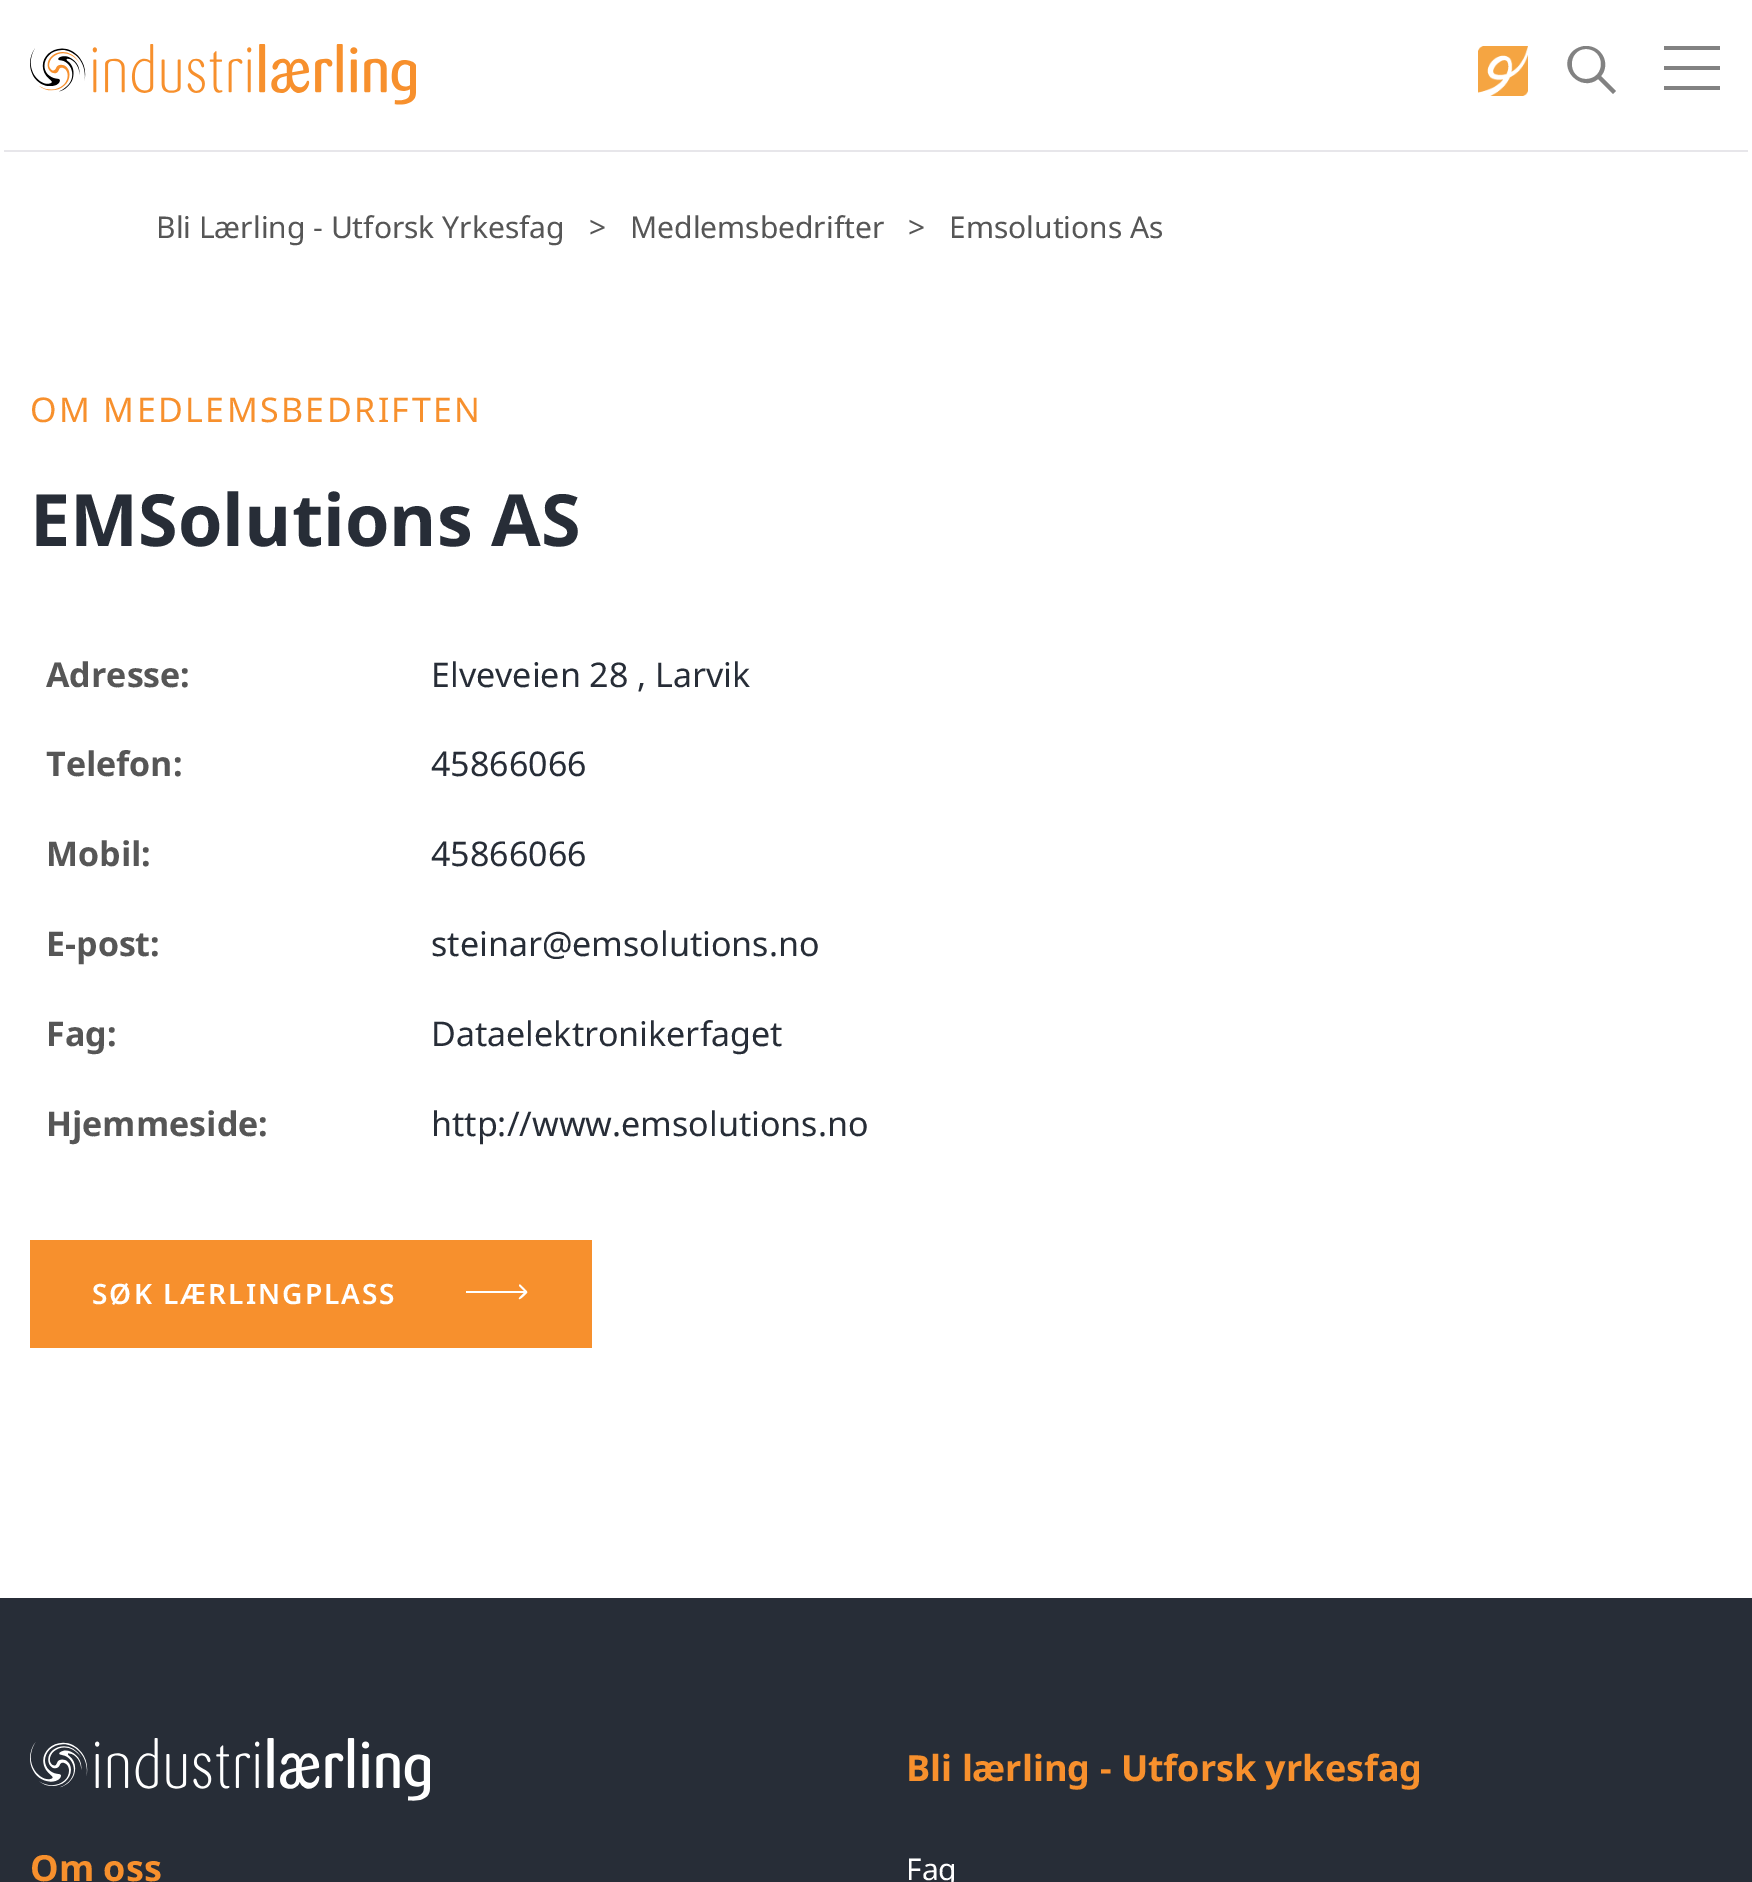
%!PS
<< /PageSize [1752 1882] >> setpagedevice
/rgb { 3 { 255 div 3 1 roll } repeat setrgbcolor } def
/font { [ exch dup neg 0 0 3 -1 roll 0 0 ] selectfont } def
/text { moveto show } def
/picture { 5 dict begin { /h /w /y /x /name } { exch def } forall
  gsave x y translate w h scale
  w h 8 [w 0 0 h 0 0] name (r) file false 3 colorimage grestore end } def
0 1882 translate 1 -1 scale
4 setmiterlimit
255 255 255 rgb
0 0 1752 1882 rectfill
231 230 234 rgb
4 150 1744 2 rectfill
(img_01.rgb) 30 44 386 61 picture
(img_02.rgb) 1478 46 50 50 picture
130 130 130 rgb
1586 46 moveto 16 0 25 18 15 30 rcurveto 15 15 rlineto -3 3 rlineto -15 -15 rlineto -17 14 -42 -11 -25 -28 rcurveto 4 -3 8 -5 13 -5 rcurveto closepath 1586 49 moveto -19 0 -19 30 0 30 rcurveto 20 0 20 -30 0 -30 rcurveto closepath fill
1664 46 56 4 rectfill
1664 66 56 4 rectfill
1664 86 56 4 rectfill
247 144 45 rgb
30 1240 562 108 rectfill
255 255 255 rgb
527 1293 moveto 1 -2 -3 -4 -3 -5 rcurveto -1 0 -4 -5 -5 -3 rcurveto 0 1 rlineto 6 6 rlineto -1 1 -7 6 -6 7 rcurveto 1 1 7 -5 8 -6 rcurveto closepath 466 1293 moveto 60 0 rlineto 0 -2 rlineto -60 0 rlineto closepath fill
39 45 55 rgb
0 1598 1752 284 rectfill
(img_03.rgb) 30 1738 400 63 picture
/NotoSans-Regular 30 font
86 86 86 rgb
(Bli Lærling - Utforsk Yrkesfag) 156 238 text
(>) 589 238 text
(Medlemsbedrifter) 630 238 text
(>) 908 238 text
(Emsolutions As) 949 238 text
/NotoSans-Regular 34 font
247 144 45 rgb
30 422 moveto 2.4 0 (OM MEDLEMSBEDRIFTEN) ashow
/NotoSans-Bold 72 font
39 45 55 rgb
(EMSolutions AS) 30 546 text
/NotoSans-Bold 34 font
86 86 86 rgb
(Adresse:) 46 687 text
/NotoSans-Regular 34 font
39 45 55 rgb
(Elveveien 28 , Larvik) 431 687 text
/NotoSans-Bold 34 font
86 86 86 rgb
(Telefon:) 46 776 text
/NotoSans-Regular 34 font
39 45 55 rgb
(45866066) 431 776 text
/NotoSans-Bold 34 font
86 86 86 rgb
(Mobil:) 46 866 text
/NotoSans-Regular 34 font
39 45 55 rgb
(45866066) 431 866 text
/NotoSans-Bold 34 font
86 86 86 rgb
(E-post:) 46 956 text
/NotoSans-Regular 34 font
39 45 55 rgb
(steinar@emsolutions.no) 431 956 text
/NotoSans-Bold 34 font
86 86 86 rgb
(Fag:) 46 1046 text
/NotoSans-Regular 34 font
39 45 55 rgb
(Dataelektronikerfaget) 431 1046 text
/NotoSans-Bold 34 font
86 86 86 rgb
(Hjemmeside:) 46 1136 text
/NotoSans-Regular 34 font
39 45 55 rgb
(http://www.emsolutions.no) 431 1136 text
/NotoSans-SemiBold 28 font
255 255 255 rgb
92 1304 moveto 2 0 (SØK LÆRLINGPLASS) ashow
/NotoSans-Bold 36 font
247 144 45 rgb
(Om oss) 30 1881 text
(Bli lærling - Utforsk yrkesfag) 906 1781 text
/NotoSans-Regular 30 font
255 255 255 rgb
(Fag) 906 1880 text
showpage
